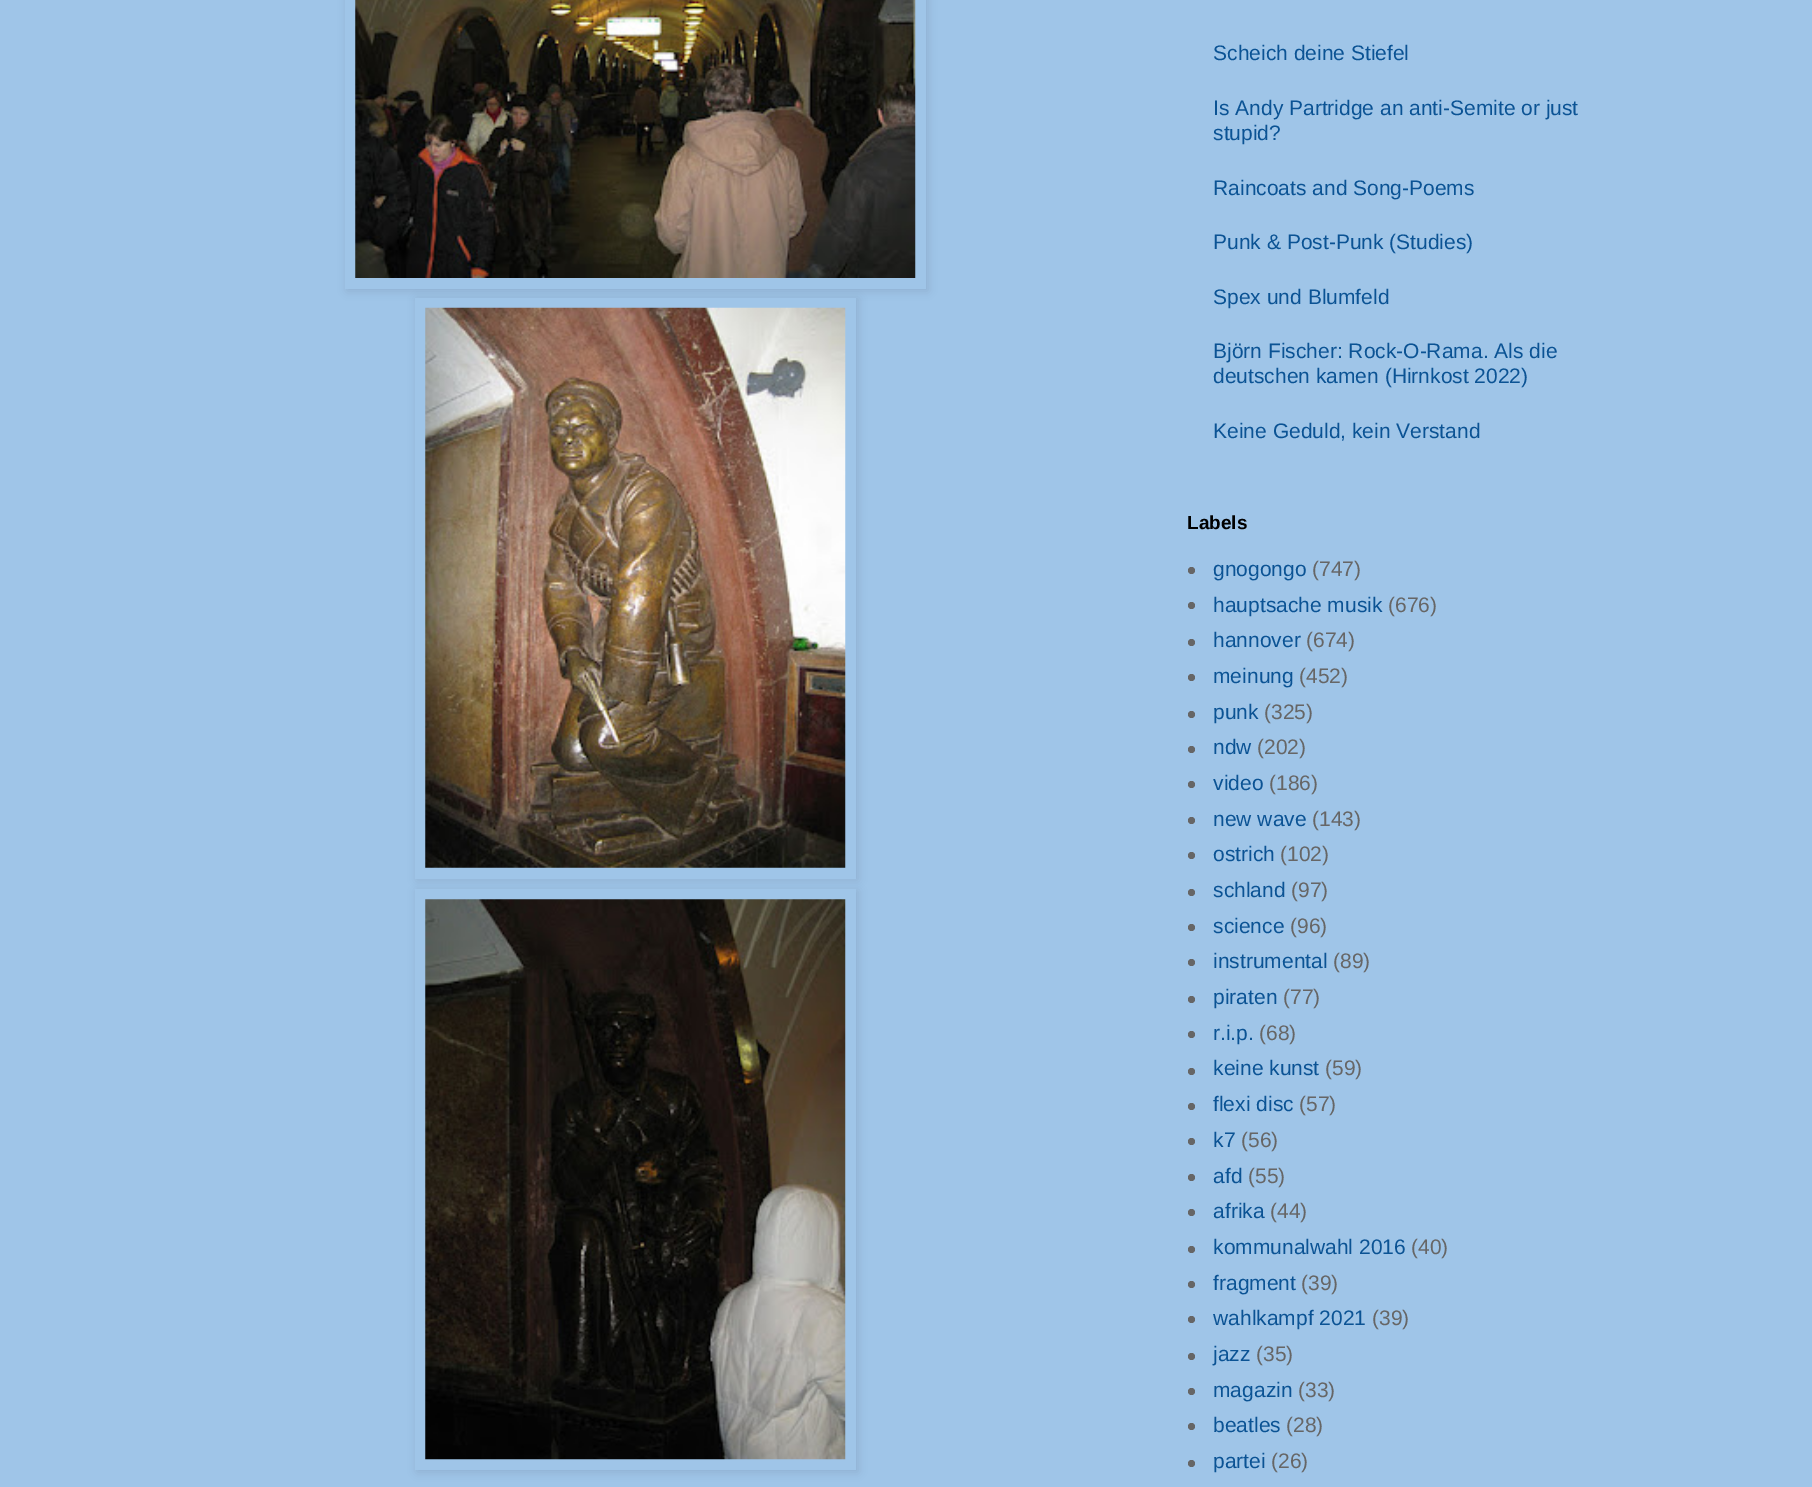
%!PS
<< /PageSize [1812 1487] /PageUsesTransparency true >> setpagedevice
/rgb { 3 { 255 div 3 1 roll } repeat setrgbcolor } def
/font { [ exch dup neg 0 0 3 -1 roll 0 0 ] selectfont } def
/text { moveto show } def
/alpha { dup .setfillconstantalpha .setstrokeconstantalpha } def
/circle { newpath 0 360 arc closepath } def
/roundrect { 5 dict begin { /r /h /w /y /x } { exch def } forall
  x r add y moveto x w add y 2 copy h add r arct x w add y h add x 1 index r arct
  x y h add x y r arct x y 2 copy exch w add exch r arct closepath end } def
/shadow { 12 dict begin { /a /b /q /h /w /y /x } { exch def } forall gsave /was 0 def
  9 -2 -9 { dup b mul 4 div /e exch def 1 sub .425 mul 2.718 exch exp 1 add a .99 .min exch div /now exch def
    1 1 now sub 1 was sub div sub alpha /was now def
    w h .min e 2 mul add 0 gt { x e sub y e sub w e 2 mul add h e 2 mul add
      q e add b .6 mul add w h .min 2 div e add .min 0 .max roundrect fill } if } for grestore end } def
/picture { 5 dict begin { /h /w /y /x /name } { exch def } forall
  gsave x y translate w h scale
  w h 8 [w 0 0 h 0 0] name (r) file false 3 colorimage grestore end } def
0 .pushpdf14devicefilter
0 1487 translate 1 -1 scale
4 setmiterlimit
159 197 232 rgb
0 0 1812 1487 rectfill
0 0 0 rgb
347 -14 581 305 0 4.5 0.1 shadow
159 197 232 rgb
345 0 581 289 rectfill
(img_01.rgb) 355 0 561 278 picture
0 0 0 rgb
417 299 441 581 0 4.5 0.1 shadow
159 197 232 rgb
415 298 441 581 rectfill
(img_02.rgb) 425 307 421 561 picture
0 0 0 rgb
417 891 441 581 0 4.5 0.1 shadow
159 197 232 rgb
415 889 441 581 rectfill
(img_03.rgb) 425 899 421 561 picture
102 102 102 rgb
1191.5 570.5 3.5 circle fill
1191.5 605.5 3.5 circle fill
1191.5 642.5 3.5 circle fill
1191.5 677.5 3.5 circle fill
1191.5 714.5 3.5 circle fill
1191.5 749.5 3.5 circle fill
1191.5 784.5 3.5 circle fill
1191.5 820.5 3.5 circle fill
1191.5 855.5 3.5 circle fill
1191.5 892.5 3.5 circle fill
1191.5 927.5 3.5 circle fill
1191.5 962.5 3.5 circle fill
1191.5 999.5 3.5 circle fill
1191.5 1034.5 3.5 circle fill
1191.5 1071.5 3.5 circle fill
1191.5 1106.5 3.5 circle fill
1191.5 1141.5 3.5 circle fill
1191.5 1177.5 3.5 circle fill
1191.5 1212.5 3.5 circle fill
1191.5 1249.5 3.5 circle fill
1191.5 1284.5 3.5 circle fill
1191.5 1319.5 3.5 circle fill
1191.5 1356.5 3.5 circle fill
1191.5 1391.5 3.5 circle fill
1191.5 1426.5 3.5 circle fill
1191.5 1463.5 3.5 circle fill
/LiberationSans-Regular 21 font
11 83 148 rgb
(Scheich deine Stiefel) 1213 60 text
(Is Andy Partridge an anti-Semite or just) 1213 115 text
(stupid?) 1213 140 text
(Raincoats and Song-Poems) 1213 195 text
(Punk & Post-Punk \(Studies\)) 1213 249 text
(Spex und Blumfeld) 1213 304 text
(Björn Fischer: Rock-O-Rama. Als die) 1213 358 text
(deutschen kamen \(Hirnkost 2022\)) 1213 383 text
(Keine Geduld, kein Verstand) 1213 438 text
/LiberationSans-Bold 19 font
0 0 0 rgb
(Labels) 1187 529 text
/LiberationSans-Regular 21 font
11 83 148 rgb
(gnogongo) 1213 576 text
102 102 102 rgb
(\(747\)) 1312 576 text
11 83 148 rgb
(hauptsache musik) 1213 612 text
102 102 102 rgb
(\(676\)) 1388 612 text
11 83 148 rgb
(hannover) 1213 647 text
102 102 102 rgb
(\(674\)) 1306 647 text
11 83 148 rgb
(meinung) 1213 683 text
102 102 102 rgb
(\(452\)) 1299 683 text
11 83 148 rgb
(punk) 1213 719 text
102 102 102 rgb
(\(325\)) 1264 719 text
11 83 148 rgb
(ndw) 1213 754 text
102 102 102 rgb
(\(202\)) 1257 754 text
11 83 148 rgb
(video) 1213 790 text
102 102 102 rgb
(\(186\)) 1269 790 text
11 83 148 rgb
(new wave) 1213 826 text
102 102 102 rgb
(\(143\)) 1312 826 text
11 83 148 rgb
(ostrich) 1213 861 text
102 102 102 rgb
(\(102\)) 1280 861 text
11 83 148 rgb
(schland) 1213 897 text
102 102 102 rgb
(\(97\)) 1291 897 text
11 83 148 rgb
(science) 1213 933 text
102 102 102 rgb
(\(96\)) 1290 933 text
11 83 148 rgb
(instrumental) 1213 968 text
102 102 102 rgb
(\(89\)) 1333 968 text
11 83 148 rgb
(piraten) 1213 1004 text
102 102 102 rgb
(\(77\)) 1283 1004 text
11 83 148 rgb
(r.i.p.) 1213 1040 text
102 102 102 rgb
(\(68\)) 1259 1040 text
11 83 148 rgb
(keine kunst) 1213 1075 text
102 102 102 rgb
(\(59\)) 1325 1075 text
11 83 148 rgb
(flexi disc) 1213 1111 text
102 102 102 rgb
(\(57\)) 1299 1111 text
11 83 148 rgb
(k7) 1213 1147 text
102 102 102 rgb
(\(56\)) 1241 1147 text
11 83 148 rgb
(afd) 1213 1183 text
102 102 102 rgb
(\(55\)) 1248 1183 text
11 83 148 rgb
(afrika) 1213 1218 text
102 102 102 rgb
(\(44\)) 1270 1218 text
11 83 148 rgb
(kommunalwahl 2016) 1213 1254 text
102 102 102 rgb
(\(40\)) 1411 1254 text
11 83 148 rgb
(fragment) 1213 1290 text
102 102 102 rgb
(\(39\)) 1301 1290 text
11 83 148 rgb
(wahlkampf 2021) 1213 1325 text
102 102 102 rgb
(\(39\)) 1372 1325 text
11 83 148 rgb
(jazz) 1213 1361 text
102 102 102 rgb
(\(35\)) 1256 1361 text
11 83 148 rgb
(magazin) 1213 1397 text
102 102 102 rgb
(\(33\)) 1298 1397 text
11 83 148 rgb
(beatles) 1213 1432 text
102 102 102 rgb
(\(28\)) 1286 1432 text
11 83 148 rgb
(partei) 1213 1468 text
102 102 102 rgb
(\(26\)) 1271 1468 text
.poppdf14devicefilter showpage
